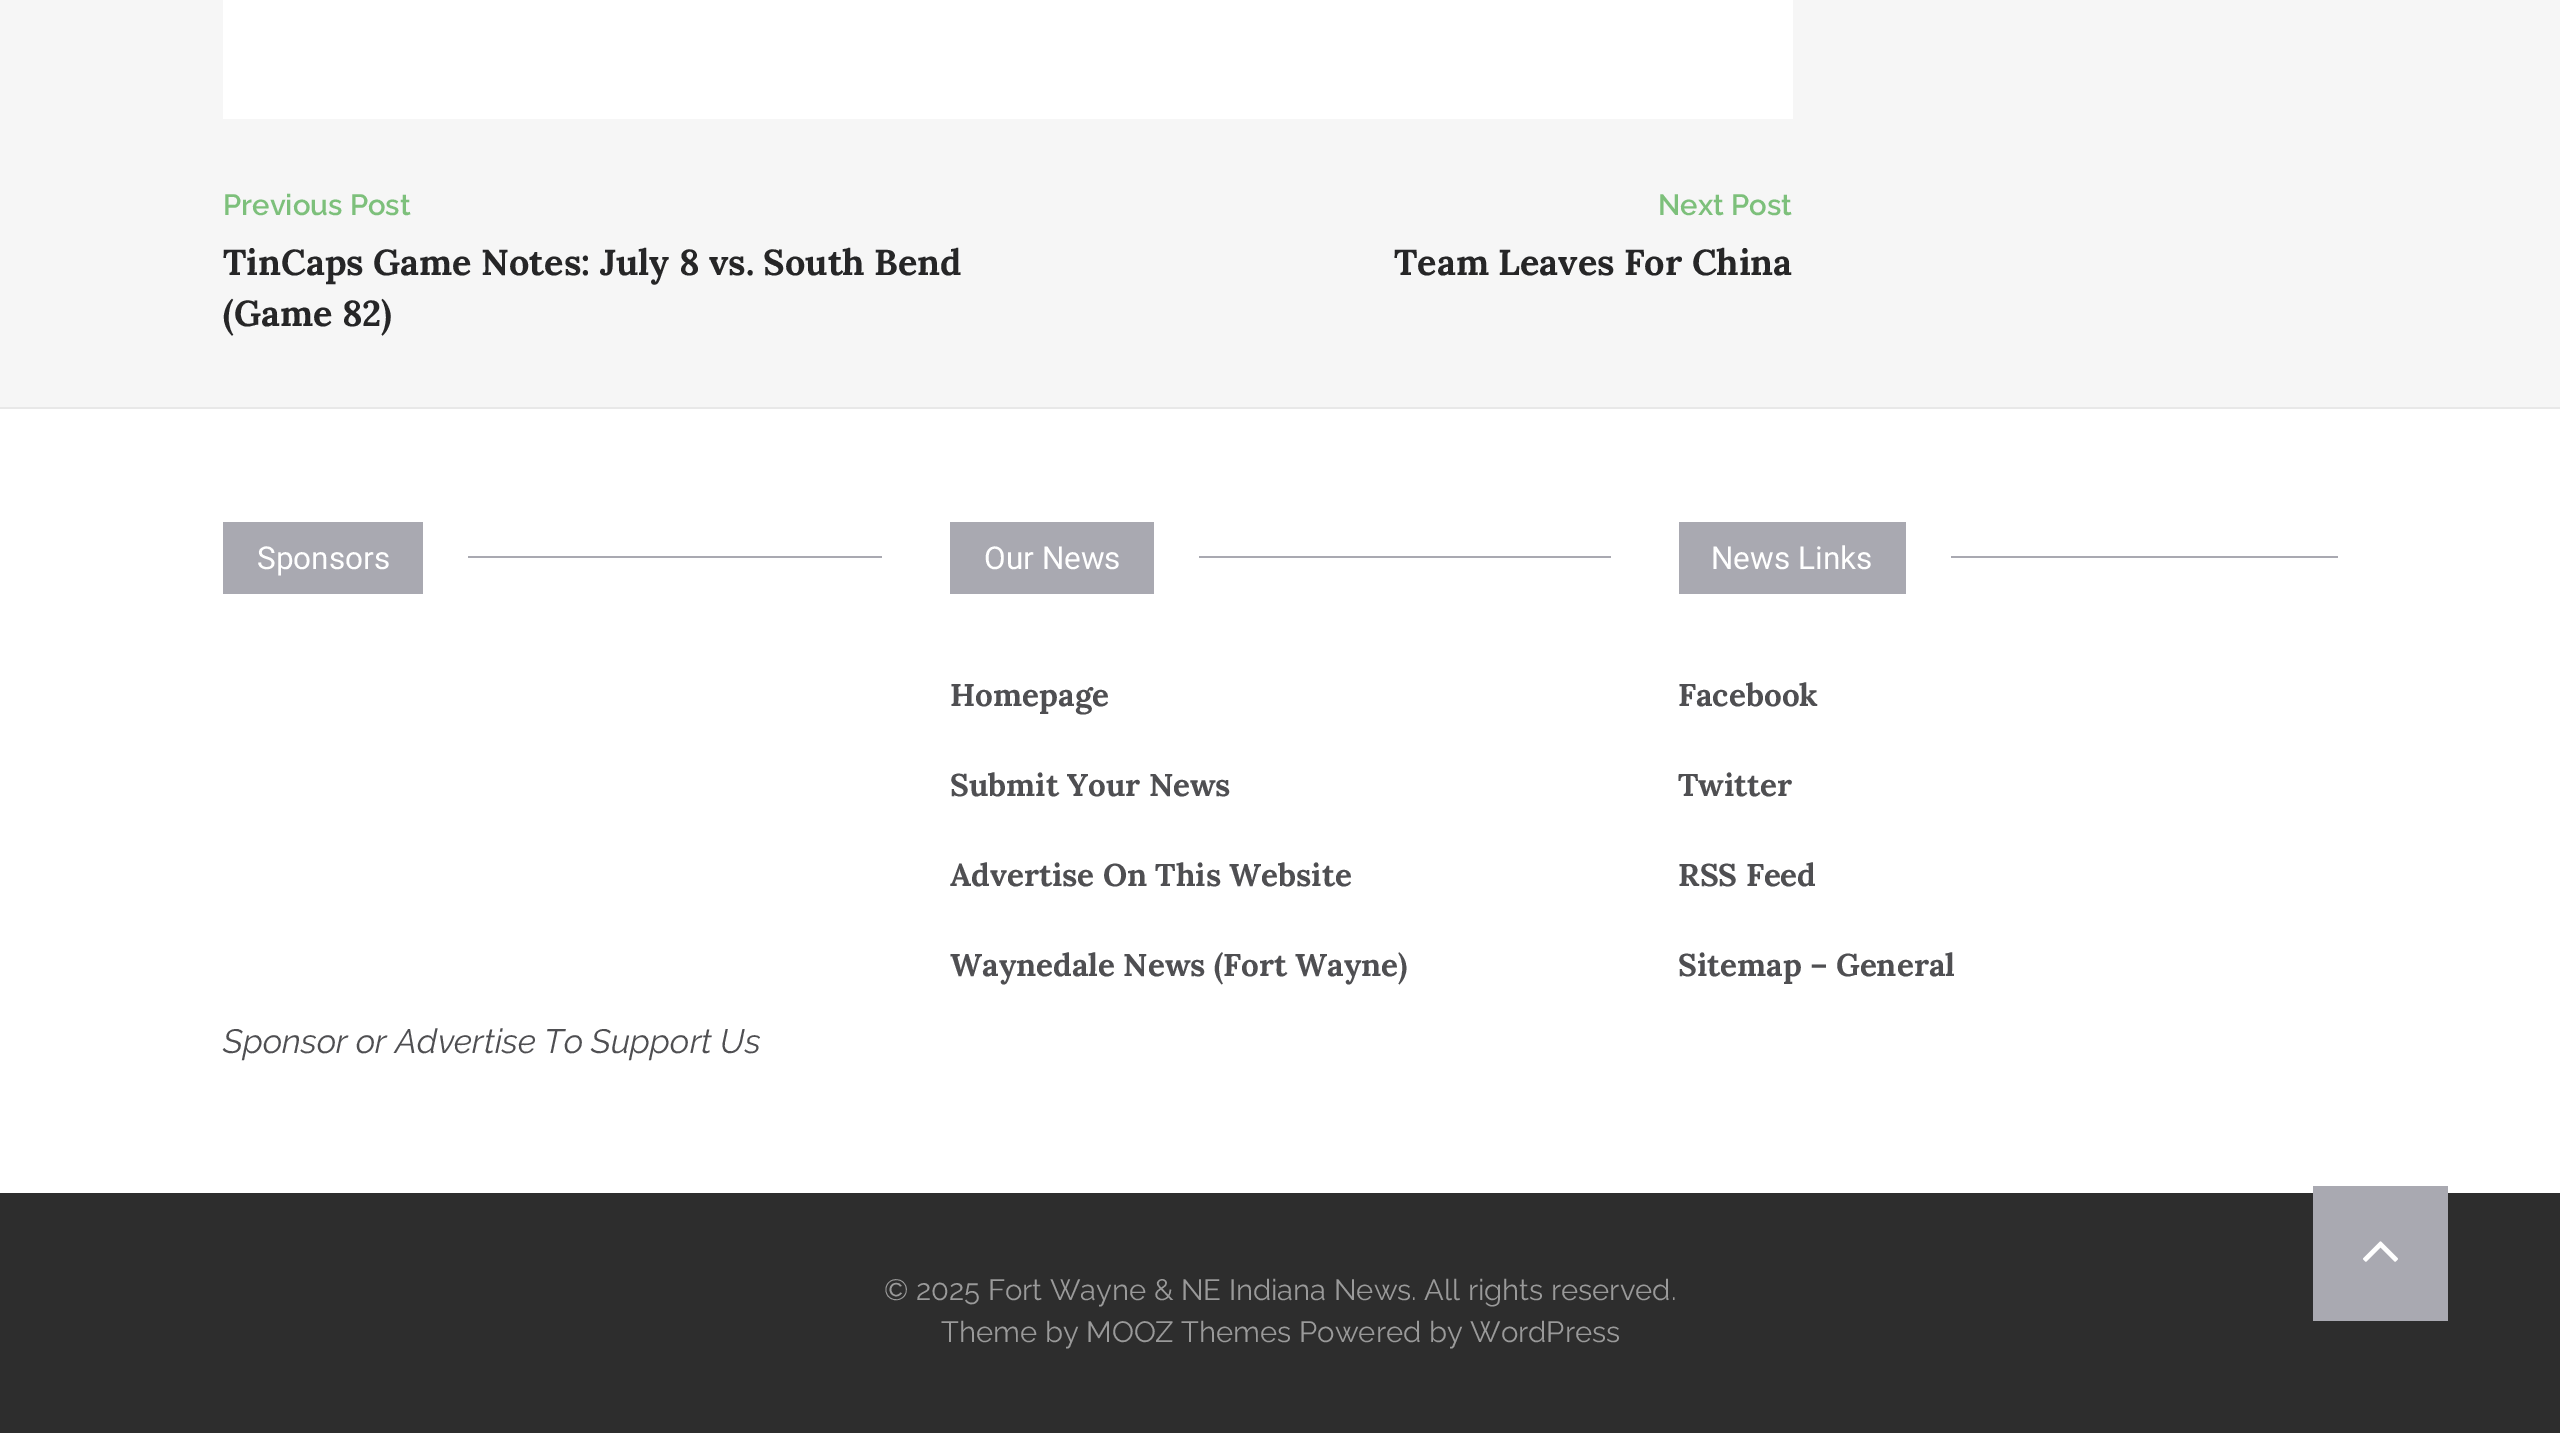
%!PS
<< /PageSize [2560 1433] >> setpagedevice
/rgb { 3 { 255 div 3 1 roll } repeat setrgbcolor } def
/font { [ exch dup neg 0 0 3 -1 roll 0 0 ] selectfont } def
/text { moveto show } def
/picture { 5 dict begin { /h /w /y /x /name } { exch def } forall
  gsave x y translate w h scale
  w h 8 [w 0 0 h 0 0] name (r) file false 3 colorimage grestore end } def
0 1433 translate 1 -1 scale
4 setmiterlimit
246 246 246 rgb
0 0 2560 1433 rectfill
255 255 255 rgb
223 0 1570 119 rectfill
0 409 2560 784 rectfill
232 232 232 rgb
0 407 2560 2 rectfill
169 169 177 rgb
223 522 200 72 rectfill
468 556 414 2 rectfill
950 522 204 72 rectfill
1199 556 412 2 rectfill
1679 522 227 72 rectfill
1951 556 387 2 rectfill
45 45 45 rgb
0 1193 2560 240 rectfill
169 169 177 rgb
2313 1186 135 135 rectfill
(img_01.rgb) 2363 1241 35 21 picture
/Raleway-SemiBold 29.25 font
125 192 123 rgb
(Previous Post) 223 215 text
/Lora-Bold 36 font
38 38 39 rgb
(TinCaps Game Notes: July 8 vs. South Bend) 223 275 text
(\(Game 82\)) 223 326 text
/Raleway-SemiBold 29.25 font
125 192 123 rgb
(Next Post) 1658 215 text
/Lora-Bold 36 font
38 38 39 rgb
(Team Leaves For China) 1394 275 text
/Roboto-Regular 31.5 font
255 255 255 rgb
(Sponsors) 257 569 text
/Raleway-ThinItalic 33.75 font
79 79 82 rgb
(Sponsor or Advertise To Support Us) 223 1053 text
/Roboto-Regular 31.5 font
255 255 255 rgb
(Our News) 984 569 text
/Lora-Bold 31.5 font
79 79 82 rgb
(Homepage) 950 706 text
(Submit Your News) 950 796 text
(Advertise On This Website) 950 886 text
(Waynedale News \(Fort Wayne\)) 950 976 text
/Roboto-Regular 31.5 font
255 255 255 rgb
(News Links) 1711 569 text
/Lora-Bold 31.5 font
79 79 82 rgb
(Facebook) 1678 706 text
(Twitter) 1678 796 text
(RSS Feed) 1678 886 text
(Sitemap – General) 1678 976 text
/Raleway-Regular 29.25 font
154 154 154 rgb
(© 2025 Fort Wayne & NE Indiana News. All rights reserved.) 884 1300 text
(Theme by MOOZ Themes Powered by WordPress) 941 1342 text
showpage
